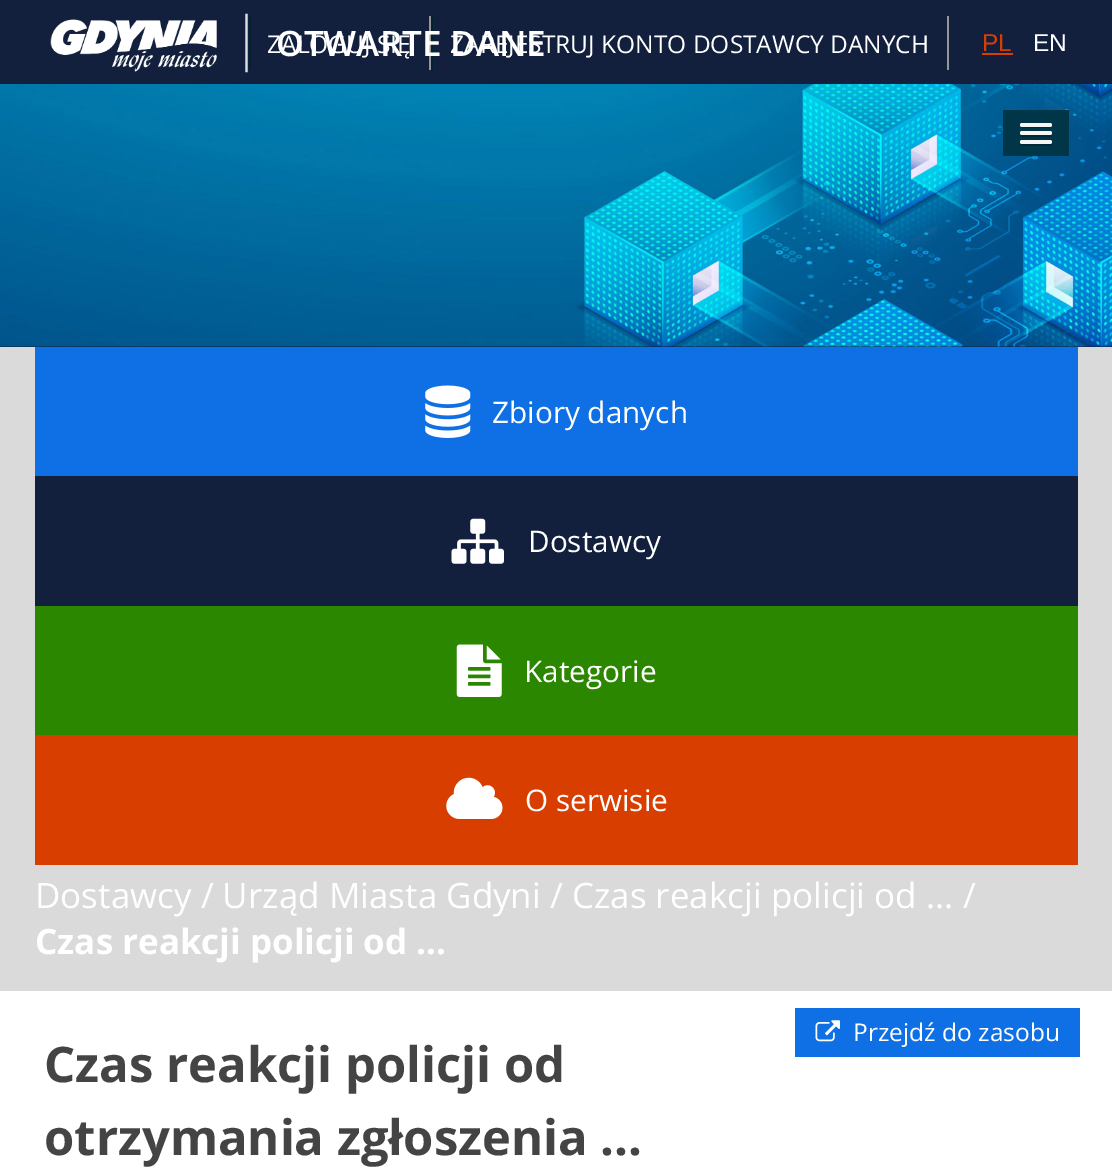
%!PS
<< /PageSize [1112 1173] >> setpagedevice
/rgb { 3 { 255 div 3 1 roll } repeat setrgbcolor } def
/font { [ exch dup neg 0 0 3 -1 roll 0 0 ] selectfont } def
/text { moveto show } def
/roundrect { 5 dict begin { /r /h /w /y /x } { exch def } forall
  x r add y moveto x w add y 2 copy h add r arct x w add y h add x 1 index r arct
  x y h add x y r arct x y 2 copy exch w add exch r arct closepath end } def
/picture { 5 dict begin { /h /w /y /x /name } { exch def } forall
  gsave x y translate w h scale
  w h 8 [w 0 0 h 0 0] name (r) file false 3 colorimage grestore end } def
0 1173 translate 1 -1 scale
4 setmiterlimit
218 218 218 rgb
0 0 1112 1173 rectfill
18 32 61 rgb
0 0 1112 84 rectfill
(img_01.rgb) 50 19 167 53 picture
150 150 150 rgb
429 16 2 54 rectfill
0 35 46 rgb
249 16 2 54 rectfill
150 150 150 rgb
947 16 2 54 rectfill
0 35 46 rgb
431 16 2 54 rectfill
216 62 0 rgb
982 53 31 2 rectfill
18 32 61 rgb
0 346 1112 1 rectfill
(img_02.rgb) 0 84 1112 263 picture
0 54 71 rgb
1003 110 66 46 rectfill
0 41 53 rgb
1020.5 125 moveto -0.5 1.5 rlineto 0.5 2.5 5.5 1.5 6.5 1.5 rcurveto 19 0 rlineto 1 0 6 1 6.5 -1.5 rcurveto -0.5 -1.5 rlineto 0 0.5 -0.5 1 -1.5 1 rcurveto -28 0 rlineto -1 0 -1.5 -0.5 -1.5 -1 rcurveto closepath fill
245 245 245 rgb
1020 123 32 4 2 roundrect fill
0 41 53 rgb
1020.5 134 moveto -0.5 1.5 rlineto 0.5 2.5 5.5 1.5 6.5 1.5 rcurveto 19 0 rlineto 1 0 6 1 6.5 -1.5 rcurveto -0.5 -1.5 rlineto 0 0.5 -1 1 -1.5 1 rcurveto -28 0 rlineto -0.5 0 -1.5 -0.5 -1.5 -1 rcurveto closepath fill
245 245 245 rgb
1020 131 32 4 2 roundrect fill
0 41 53 rgb
1020.5 142.5 moveto -1 1.5 -0.5 3 1 3.5 rcurveto 29 0 rlineto 1.5 -0.5 2 -2 1 -3.5 rcurveto -1.5 1 rlineto -28 0 rlineto closepath fill
245 245 245 rgb
1020 140 32 4 2 roundrect fill
15 111 228 rgb
35 347 1043 129 rectfill
(img_03.rgb) 425 385 46 53 picture
18 32 61 rgb
35 476 1043 130 rectfill
(img_04.rgb) 451 518 53 46 picture
44 135 0 rgb
35 606 1043 129 rectfill
(img_05.rgb) 456 644 46 53 picture
216 62 0 rgb
35 735 1043 130 rectfill
(img_06.rgb) 446 777 57 42 picture
255 255 255 rgb
0 991 1112 182 rectfill
15 111 228 rgb
795 1008 285 49 rectfill
(img_07.rgb) 815 1020 25 22 picture
/OpenSans-Light 58 font
219 222 226 rgb
(|) 231 58 text
/OpenSans-Regular 24.5 font
255 255 255 rgb
(ZALOGUJ SIĘ) 267 53 text
(ZAREJESTRUJ KONTO DOSTAWCY DANYCH) 450 53 text
/OpenSans-SemiBold 35 font
(OTWARTE DANE) 276 56 text
/LiberationSans-Regular 24.5 font
216 62 0 rgb
(PL) 982 51 text
255 255 255 rgb
(EN) 1033 51 text
/OpenSans-Regular 29.75 font
(Zbiory danych) 492 423 text
(Dostawcy) 528 552 text
(Kategorie) 524 682 text
(O serwisie) 525 811 text
/OpenSans-Regular 35 font
(Dostawcy / Urząd Miasta Gdyni / Czas reakcji policji od ... /) 35 908 text
/OpenSans-Bold 35 font
(Czas reakcji policji od ...) 35 954 text
/OpenSans-Regular 24.5 font
(Przejdź do zasobu) 853 1041 text
/OpenSans-Bold 49 font
68 68 68 rgb
(Czas reakcji policji od) 44 1082 text
(otrzymania zgłoszenia ...) 44 1155 text
showpage
